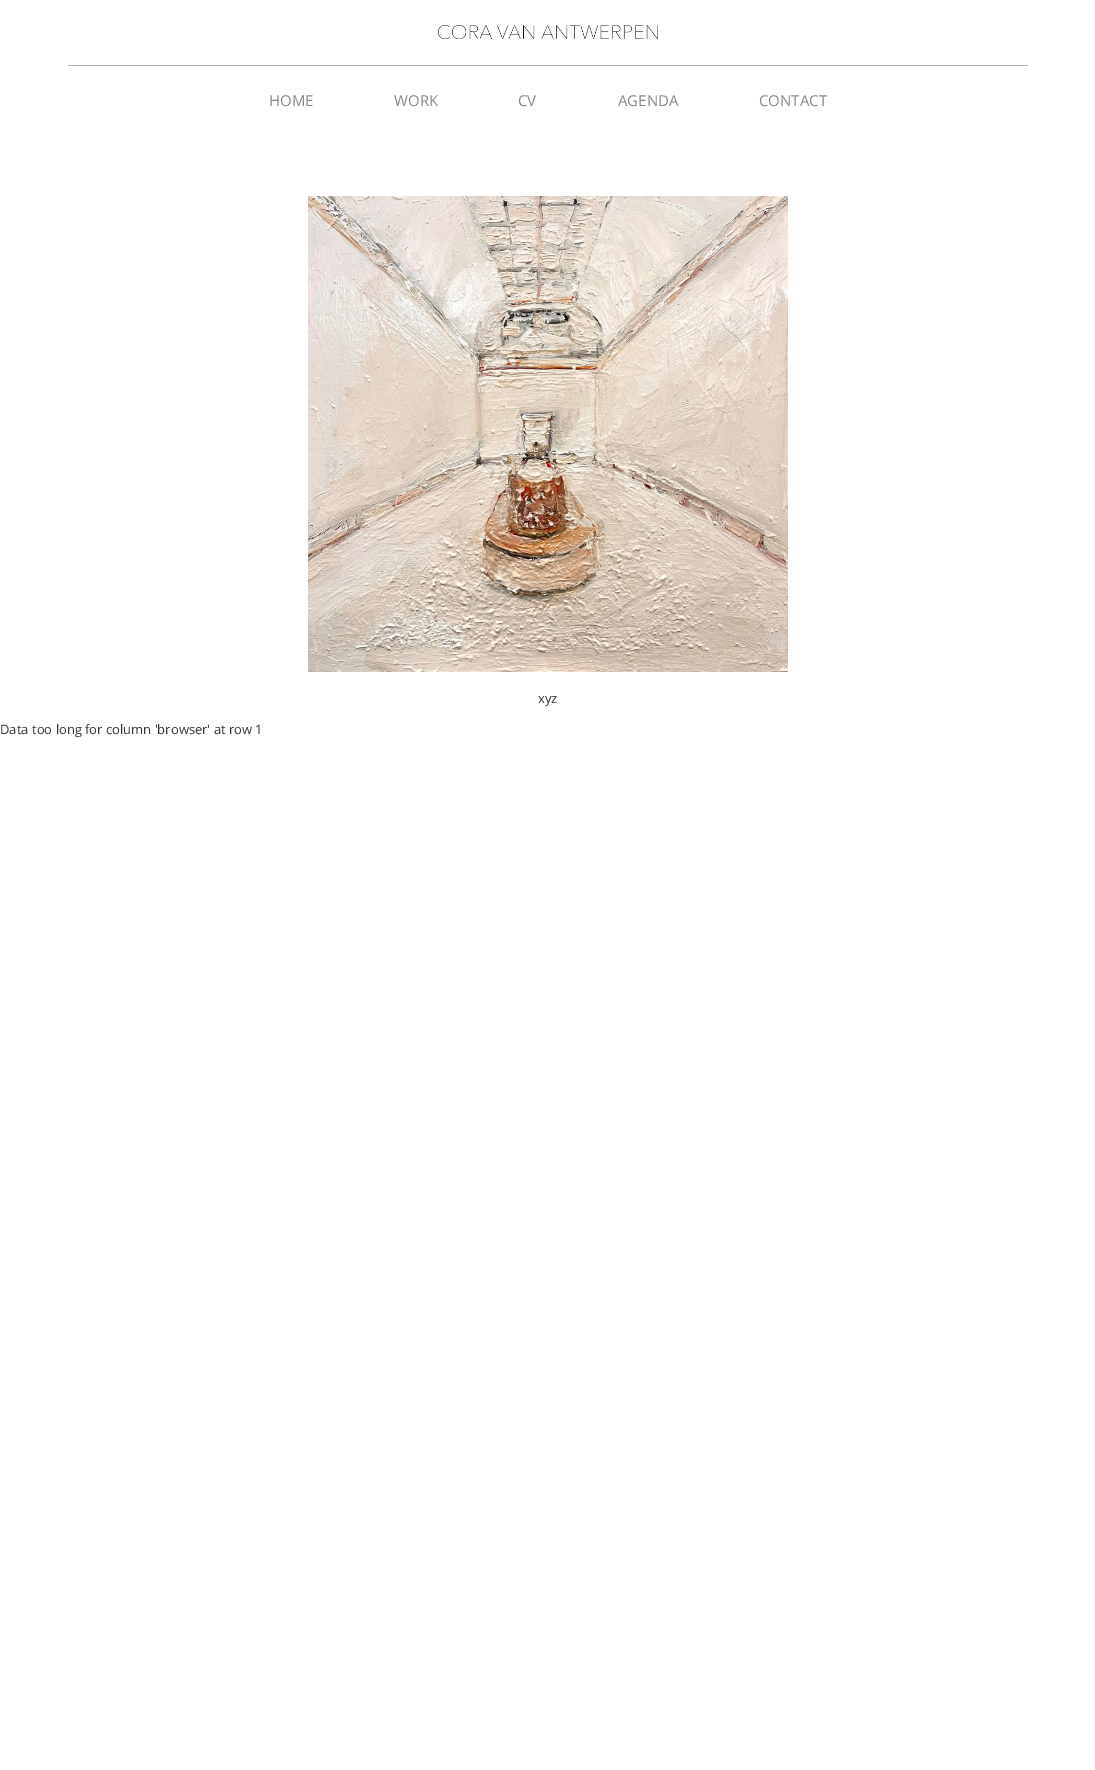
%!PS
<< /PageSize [1095 1770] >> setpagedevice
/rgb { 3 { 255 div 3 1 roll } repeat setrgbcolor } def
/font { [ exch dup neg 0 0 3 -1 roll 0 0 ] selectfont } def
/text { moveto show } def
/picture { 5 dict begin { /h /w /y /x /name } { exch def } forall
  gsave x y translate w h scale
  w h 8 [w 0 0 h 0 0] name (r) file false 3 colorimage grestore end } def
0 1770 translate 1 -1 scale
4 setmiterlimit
255 255 255 rgb
0 0 1095 1770 rectfill
179 179 179 rgb
68 65 960 1 rectfill
(img_01.rgb) 438 25 220 14 picture
(img_02.rgb) 308 196 480 476 picture
/OpenSans-Regular 15 font
136 136 136 rgb
(HOME) 269 106 text
(WORK) 394 106 text
(CV) 518 106 text
(AGENDA) 618 106 text
(CONTACT) 759 106 text
/OpenSans-Regular 13 font
51 51 51 rgb
(xyz) 538 703 text
(Data too long for column 'browser' at row 1) 0 734 text
showpage
